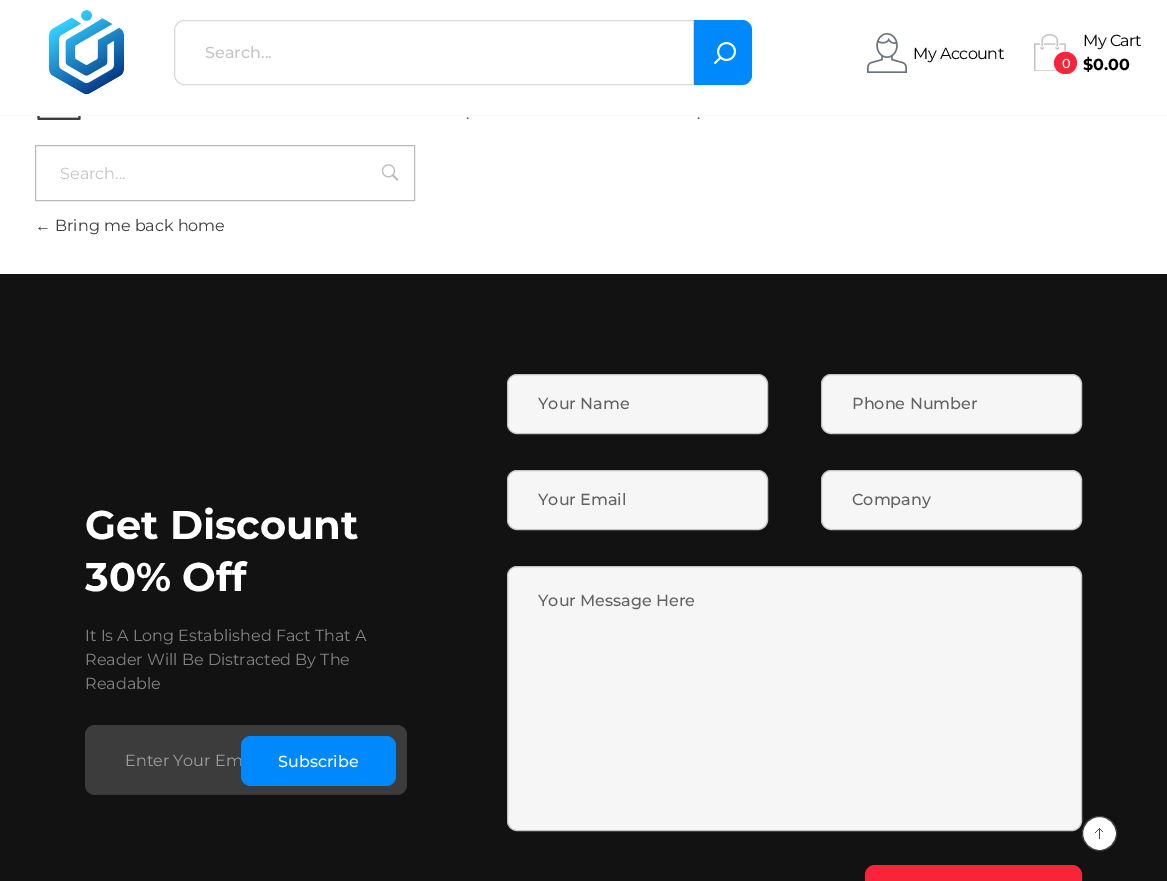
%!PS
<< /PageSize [1167 881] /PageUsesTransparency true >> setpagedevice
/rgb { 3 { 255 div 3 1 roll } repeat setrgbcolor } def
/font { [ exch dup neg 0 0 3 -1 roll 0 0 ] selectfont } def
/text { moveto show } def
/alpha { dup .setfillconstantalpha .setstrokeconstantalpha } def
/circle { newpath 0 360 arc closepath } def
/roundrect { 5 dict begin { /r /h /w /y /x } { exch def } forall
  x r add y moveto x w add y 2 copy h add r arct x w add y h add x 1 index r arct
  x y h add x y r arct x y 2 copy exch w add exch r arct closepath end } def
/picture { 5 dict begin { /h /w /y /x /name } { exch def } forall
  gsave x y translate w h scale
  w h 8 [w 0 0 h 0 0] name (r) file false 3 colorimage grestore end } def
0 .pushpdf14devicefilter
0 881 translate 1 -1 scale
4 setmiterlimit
255 255 255 rgb
0 0 1167 881 rectfill
247 247 247 rgb
0 115 1167 1 rectfill
(img_01.rgb) 49 10 75 85 picture
216 216 216 rgb
184 20.5 moveto 509.5 0 rlineto 0 64 rlineto -509.5 0 rlineto -5 0 -9.5 -4.5 -9.5 -9.5 rcurveto 0 -45 rlineto 0 -5 4.5 -9.5 9.5 -9.5 rcurveto closepath stroke
0 137 253 rgb
694 20 moveto 48 0 rlineto 5.5 0 10 4.5 10 10 rcurveto 0 45 rlineto 0 5.5 -4.5 10 -10 10 rcurveto -48 0 rlineto closepath fill
(img_02.rgb) 714 42 22 22 picture
(img_03.rgb) 867 33 40 40 picture
(img_04.rgb) 1034 34 32 37 picture
248 37 58 rgb
1054 52 23 22 11 roundrect fill
(img_05.rgb) 37 116 44 4 picture
187 187 187 rgb
35.5 145.5 379 55 rectstroke
(img_06.rgb) 381 164 18 17 picture
18 18 18 rgb
0 274 1167 607 rectfill
60 60 60 rgb
85 725 322 70 10 roundrect fill
0.07 alpha
0 0 0 rgb
85 784 moveto 0 1 rlineto 0 6 4 10 10 10 rcurveto 302 0 rlineto 6 0 10 -4 10 -10 rcurveto 0 -1 rlineto 0 6 -4 10 -10 10 rcurveto -302 0 rlineto -6 0 -10 -4 -10 -10 rcurveto closepath fill
1 alpha
246 246 246 rgb
507.5 374.5 260 59 9.5 roundrect gsave fill grestore
194 194 194 rgb
stroke
246 246 246 rgb
821.5 374.5 260 59 9.5 roundrect gsave fill grestore
194 194 194 rgb
stroke
246 246 246 rgb
507.5 470.5 260 59 9.5 roundrect gsave fill grestore
194 194 194 rgb
stroke
246 246 246 rgb
821.5 470.5 260 59 9.5 roundrect gsave fill grestore
194 194 194 rgb
stroke
246 246 246 rgb
507.5 566.5 574 264 9.5 roundrect gsave fill grestore
194 194 194 rgb
stroke
248 37 58 rgb
865 865 217 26 10 roundrect fill
255 255 255 rgb
1099.5 833.5 17 circle gsave fill grestore
61 61 61 rgb
stroke
(img_07.rgb) 1095 828 8 11 picture
/Montserrat-Medium 16 font
197 197 197 rgb
(Search...) 205 58 text
/Montserrat-Regular 16 font
0 0 0 rgb
913 59 moveto -0.5 0 (My Account) ashow
/Montserrat-Medium 13 font
255 255 255 rgb
(0) 1062 68 text
/Montserrat-Regular 16 font
0 0 0 rgb
1083 46 moveto -0.5 0 (My Cart) ashow
/Montserrat-Bold 16 font
($0.00) 1083 70 text
/Montserrat-Regular 16 font
68 68 68 rgb
(.) 466 119 text
(.) 697 119 text
197 197 197 rgb
(Search...) 60 179 text
/LiberationSans-Regular 16 font
61 61 61 rgb
(←) 35 231 text
/Montserrat-Regular 16 font
(Bring me back home) 55 231 text
/Montserrat-Bold 40 font
255 255 255 rgb
(Get Discount) 85 539 text
(30% Off) 85 591 text
/Montserrat-Regular 16 font
129 129 129 rgb
(It Is A Long Established Fact That A) 85 641 text
(Reader Will Be Distracted By The) 85 665 text
(Readable) 85 689 text
156 156 156 rgb
(Enter Your Em) 125 766 text
0 137 253 rgb
241 736 155 50 10 roundrect fill
/Montserrat-Medium 16 font
255 255 255 rgb
(Subscribe) 278 767 text
98 98 98 rgb
(Your Name) 538 409 text
(Phone Number) 852 409 text
(Your Email) 538 505 text
(Company) 852 505 text
(Your Message Here) 538 606 text
.poppdf14devicefilter showpage
